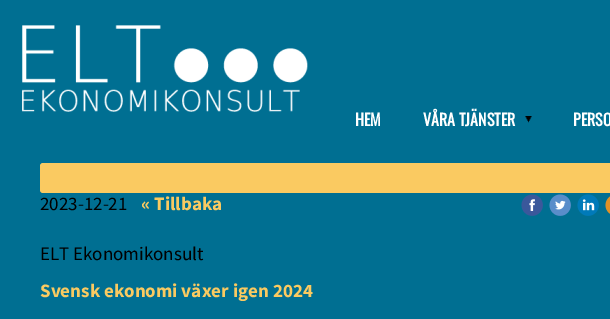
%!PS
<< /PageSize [610 319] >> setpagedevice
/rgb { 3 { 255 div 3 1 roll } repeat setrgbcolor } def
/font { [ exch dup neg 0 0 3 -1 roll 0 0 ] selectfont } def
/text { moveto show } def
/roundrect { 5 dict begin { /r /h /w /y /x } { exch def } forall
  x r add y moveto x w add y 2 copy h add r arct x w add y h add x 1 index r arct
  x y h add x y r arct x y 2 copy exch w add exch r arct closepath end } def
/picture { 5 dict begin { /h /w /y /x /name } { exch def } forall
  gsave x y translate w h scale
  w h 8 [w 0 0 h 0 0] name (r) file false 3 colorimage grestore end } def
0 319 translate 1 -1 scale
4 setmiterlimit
0 111 146 rgb
0 0 610 319 rectfill
(img_01.rgb) 22 25 286 87 picture
(img_02.rgb) 525 116 7 7 picture
250 202 97 rgb
40 163 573 30 3 roundrect fill
(img_03.rgb) 521 194 22 22 picture
(img_04.rgb) 549 194 22 22 picture
(img_05.rgb) 577 194 22 22 picture
(img_06.rgb) 605 196 5 18 picture
/Oswald-Bold 16 font
255 255 255 rgb
(HEM) 355 126 text
(VÅRA TJÄNSTER) 423 126 text
(PERSO) 573 126 text
/SourceSansPro-Regular 19 font
0 0 0 rgb
(2023-12-21) 40 210 text
/SourceSansPro-Bold 19 font
250 202 97 rgb
(« Tillbaka) 141 210 text
/SourceSansPro-Regular 19 font
0 0 0 rgb
(ELT Ekonomikonsult) 40 260 text
/SourceSansPro-Bold 19 font
250 202 97 rgb
(Svensk ekonomi växer igen 2024) 40 297 text
showpage
